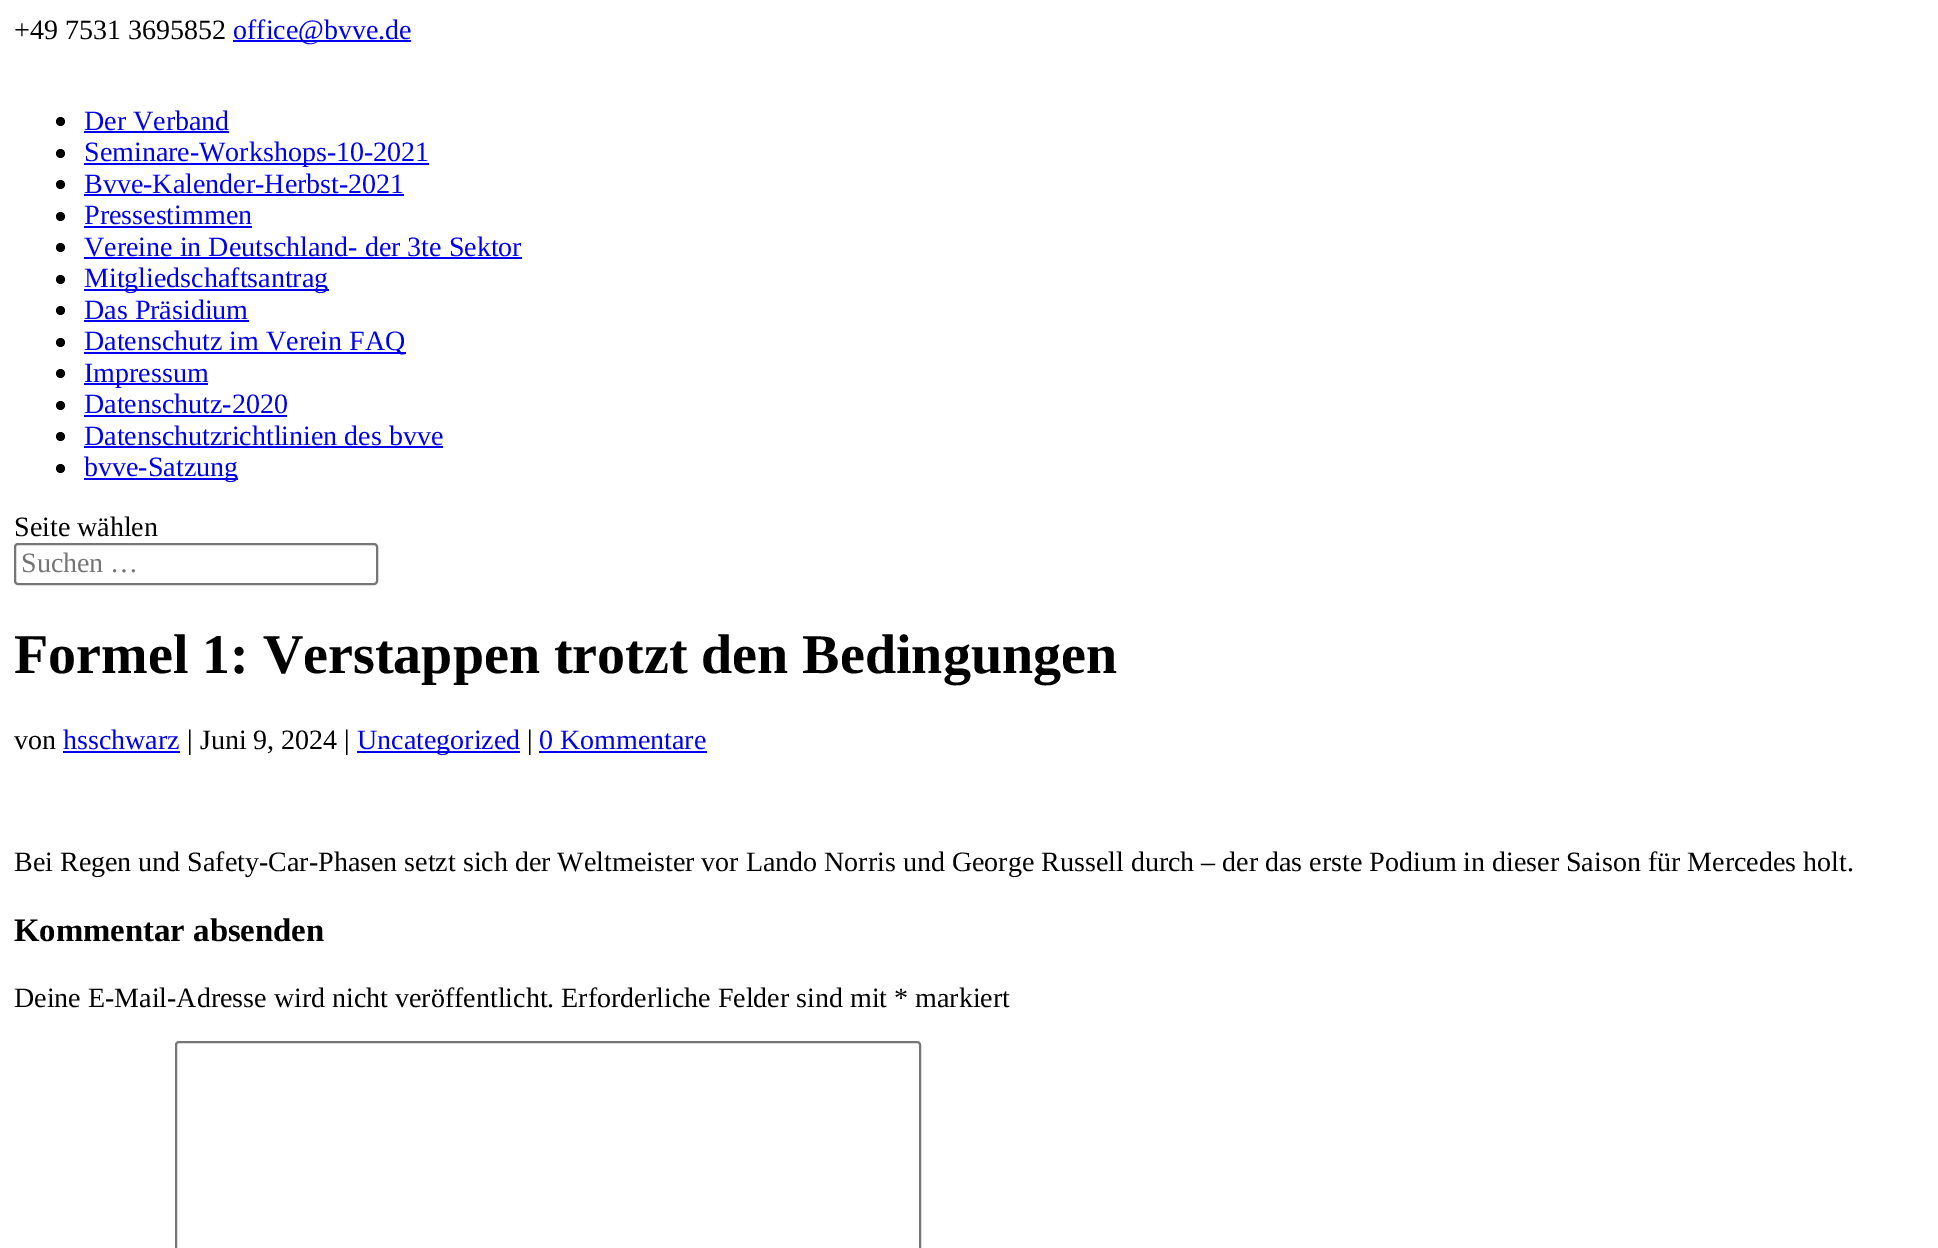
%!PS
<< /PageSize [1938 1248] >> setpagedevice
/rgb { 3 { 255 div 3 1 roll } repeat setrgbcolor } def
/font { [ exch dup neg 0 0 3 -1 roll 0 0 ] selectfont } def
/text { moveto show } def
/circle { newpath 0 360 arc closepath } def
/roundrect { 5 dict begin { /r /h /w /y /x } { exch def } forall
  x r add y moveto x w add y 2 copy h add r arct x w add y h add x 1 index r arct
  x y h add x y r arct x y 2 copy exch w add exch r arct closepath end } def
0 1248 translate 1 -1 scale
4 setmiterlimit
255 255 255 rgb
0 0 1938 1248 rectfill
0 0 238 rgb
233 40 178 2 rectfill
0 0 0 rgb
60.5 121.5 4.5 circle fill
0 0 238 rgb
84 131 145 2 rectfill
0 0 0 rgb
60.5 153.5 4.5 circle fill
0 0 238 rgb
84 163 345 2 rectfill
0 0 0 rgb
60.5 184.5 4.5 circle fill
0 0 238 rgb
84 194 320 2 rectfill
0 0 0 rgb
60.5 216.5 4.5 circle fill
0 0 238 rgb
84 226 168 2 rectfill
0 0 0 rgb
60.5 247.5 4.5 circle fill
0 0 238 rgb
84 257 438 2 rectfill
0 0 0 rgb
60.5 279.5 4.5 circle fill
0 0 238 rgb
84 289 245 2 rectfill
0 0 0 rgb
60.5 310.5 4.5 circle fill
0 0 238 rgb
84 320 165 2 rectfill
0 0 0 rgb
60.5 342.5 4.5 circle fill
0 0 238 rgb
84 352 322 2 rectfill
0 0 0 rgb
60.5 373.5 4.5 circle fill
0 0 238 rgb
84 383 124 2 rectfill
0 0 0 rgb
60.5 405.5 4.5 circle fill
0 0 238 rgb
84 415 203 2 rectfill
0 0 0 rgb
60.5 436.5 4.5 circle fill
0 0 238 rgb
84 446 359 2 rectfill
0 0 0 rgb
60.5 468.5 4.5 circle fill
0 0 238 rgb
84 478 154 2 rectfill
118 118 118 rgb
2 setlinewidth
15 544 362 40 3 roundrect stroke
0 0 238 rgb
63 751 117 2 rectfill
357 751 163 2 rectfill
539 751 168 2 rectfill
118 118 118 rgb
176 1042 744 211 3 roundrect stroke
/LiberationSerif-Regular 28 font
0 0 0 rgb
(+49 7531 3695852) 14 39 text
0 0 238 rgb
(office@bvve.de) 233 39 text
(Der Verband) 84 130 text
(Seminare-Workshops-10-2021) 84 161 text
(Bvve-Kalender-Herbst-2021) 84 193 text
(Pressestimmen) 84 224 text
(Vereine in Deutschland- der 3te Sektor) 84 256 text
(Mitgliedschaftsantrag) 84 287 text
(Das Präsidium) 84 319 text
(Datenschutz im Verein FAQ) 84 350 text
(Impressum) 84 382 text
(Datenschutz-2020) 84 413 text
(Datenschutzrichtlinien des bvve) 84 445 text
(bvve-Satzung) 84 476 text
0 0 0 rgb
(Seite wählen) 14 536 text
117 117 117 rgb
(Suchen …) 21 572 text
/LiberationSerif-Bold 56 font
0 0 0 rgb
(Formel 1: Verstappen trotzt den Bedingungen) 14 673 text
/LiberationSerif-Regular 28 font
(von) 14 749 text
0 0 238 rgb
(hsschwarz) 63 749 text
0 0 0 rgb
(| Juni 9, 2024 |) 187 749 text
0 0 238 rgb
(Uncategorized) 357 749 text
0 0 0 rgb
(|) 527 749 text
0 0 238 rgb
(0 Kommentare) 539 749 text
0 0 0 rgb
(Bei Regen und Safety-Car-Phasen setzt sich der Weltmeister vor Lando Norris und George Russell durch – der das erste Podium in dieser Saison für Mercedes holt.) 14 871 text
/LiberationSerif-Bold 32.75 font
(Kommentar absenden) 14 941 text
/LiberationSerif-Regular 28 font
(Deine E-Mail-Adresse wird nicht veröffentlicht. Erforderliche Felder sind mit * markiert) 14 1007 text
showpage
